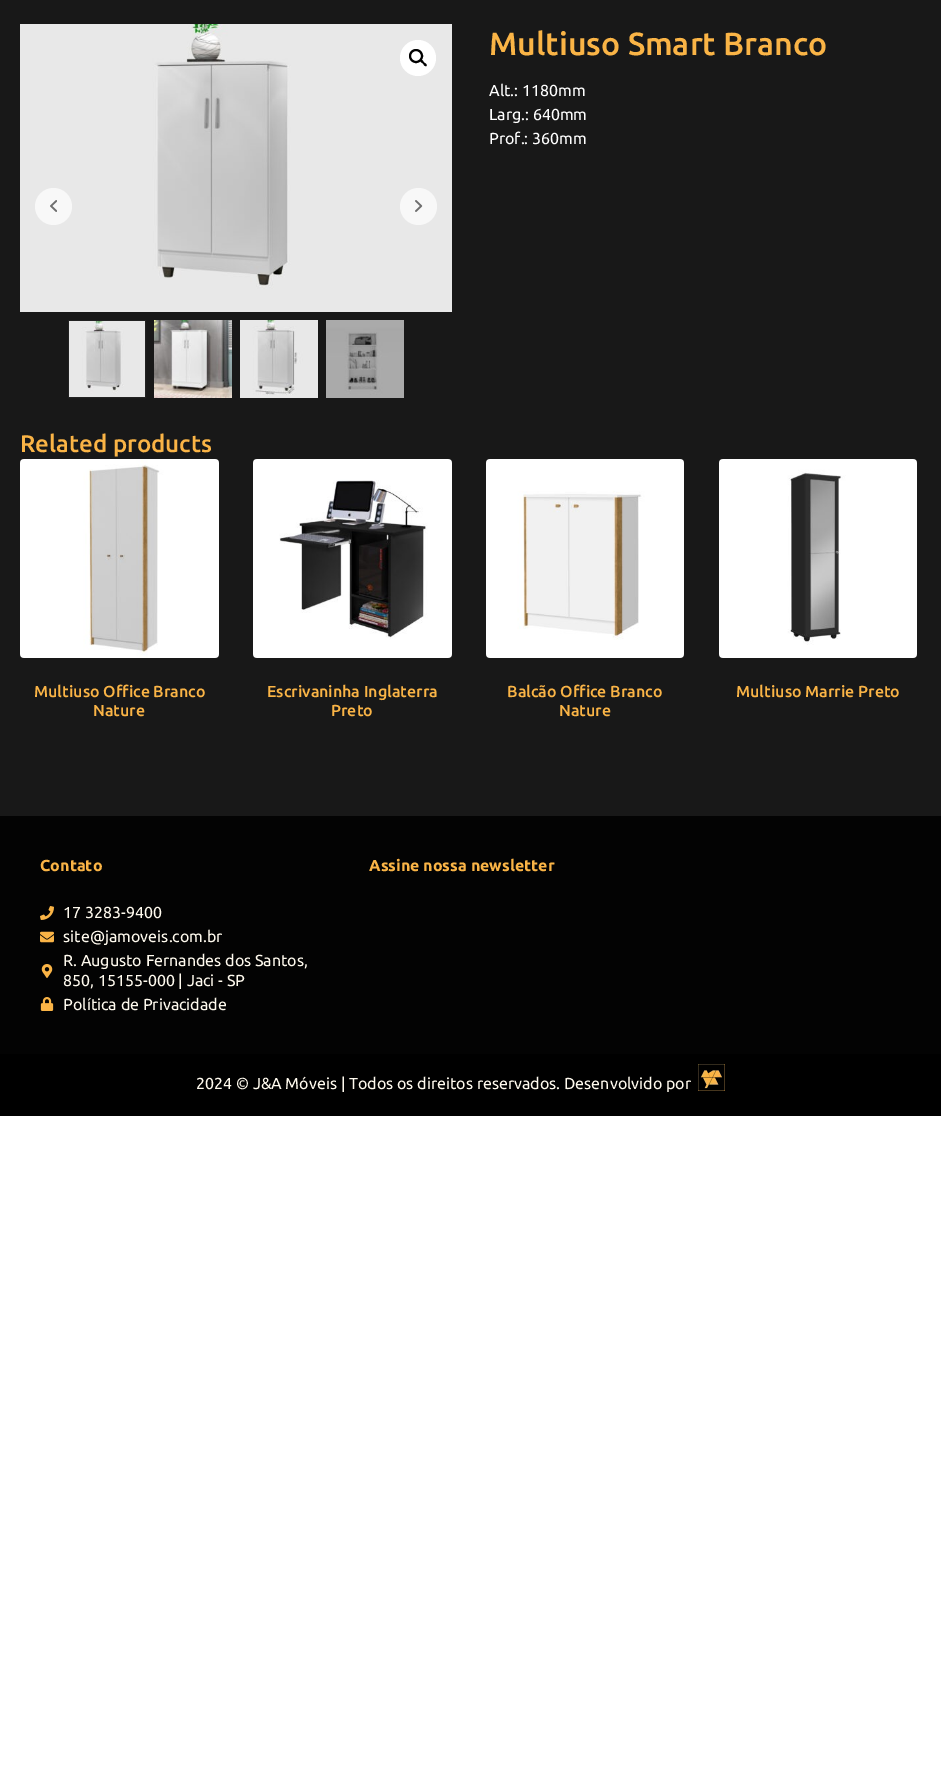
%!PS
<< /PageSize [941 1779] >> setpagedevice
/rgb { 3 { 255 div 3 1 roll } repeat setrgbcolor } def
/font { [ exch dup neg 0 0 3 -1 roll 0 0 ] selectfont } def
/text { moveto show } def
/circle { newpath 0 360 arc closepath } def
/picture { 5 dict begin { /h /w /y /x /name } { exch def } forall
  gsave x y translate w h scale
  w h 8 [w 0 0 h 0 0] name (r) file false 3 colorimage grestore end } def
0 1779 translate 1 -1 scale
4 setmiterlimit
255 255 255 rgb
0 0 941 1779 rectfill
24 24 24 rgb
0 0 941 816 rectfill
(img_01.rgb) 20 24 432 288 picture
255 255 255 rgb
418 58 18 circle fill
0 0 0 rgb
2 setlinewidth
416 56 6 circle stroke
420.5 60 moveto 1.5 -1 3 1.5 3.5 2.5 rcurveto 1 0.5 3.5 2 2.5 3.5 rcurveto -1.5 1 -3 -1.5 -3.5 -2.5 rcurveto -1 -0.5 -3.5 -2 -2.5 -3.5 rcurveto closepath fill
248 248 248 rgb
53.5 206.5 18.5 circle fill
(img_02.rgb) 50 200 7 12 picture
418.5 206.5 18.5 circle fill
(img_03.rgb) 415 200 8 12 picture
34 34 34 rgb
1 setlinewidth
68.5 320.5 77 77 rectstroke
(img_04.rgb) 69 321 76 76 picture
(img_05.rgb) 154 320 78 78 picture
(img_06.rgb) 240 320 78 78 picture
(img_07.rgb) 326 320 78 78 picture
(img_08.rgb) 20 459 199 199 picture
(img_09.rgb) 253 459 199 199 picture
(img_10.rgb) 486 459 198 199 picture
(img_11.rgb) 719 459 198 199 picture
3 3 3 rgb
0 816 941 238 rectfill
(img_12.rgb) 40 906 14 14 picture
(img_13.rgb) 40 931 14 12 picture
(img_14.rgb) 41 964 12 14 picture
(img_15.rgb) 40 997 14 14 picture
0 0 0 rgb
0 1054 941 62 rectfill
(img_16.rgb) 698 1064 27 27 picture
/Ubuntu-Medium 32 font
250 180 70 rgb
(Multiuso Smart Branco) 489 55 text
/Ubuntu-Regular 16 font
255 255 255 rgb
(Alt.: 1180mm) 489 96 text
(Larg.: 640mm) 489 120 text
(Prof.: 360mm) 489 144 text
/Ubuntu-Medium 24 font
250 180 70 rgb
(Related products) 20 452 text
/Ubuntu-Medium 16 font
(Multiuso Office Branco) 34 697 text
(Nature) 93 716 text
(Escrivaninha Inglaterra) 267 697 text
(Preto) 331 716 text
(Balcão Office Branco) 507 697 text
(Nature) 559 716 text
(Multiuso Marrie Preto) 736 697 text
/Ubuntu-Bold 16 font
(Contato) 40 871 text
/Ubuntu-Regular 16 font
255 250 238 rgb
(17 3283-9400) 63 918 text
(site@jamoveis.com.br) 63 942 text
(R. Augusto Fernandes dos Santos,) 63 966 text
(850, 15155-000 | Jaci - SP) 63 986 text
(Política de Privacidade) 63 1010 text
/Ubuntu-Bold 16 font
250 180 70 rgb
(Assine nossa newsletter) 369 871 text
/Ubuntu-Regular 16 font
255 250 238 rgb
(2024 © J&A Móveis | Todos os direitos reservados. Desenvolvido por) 196 1089 text
showpage
